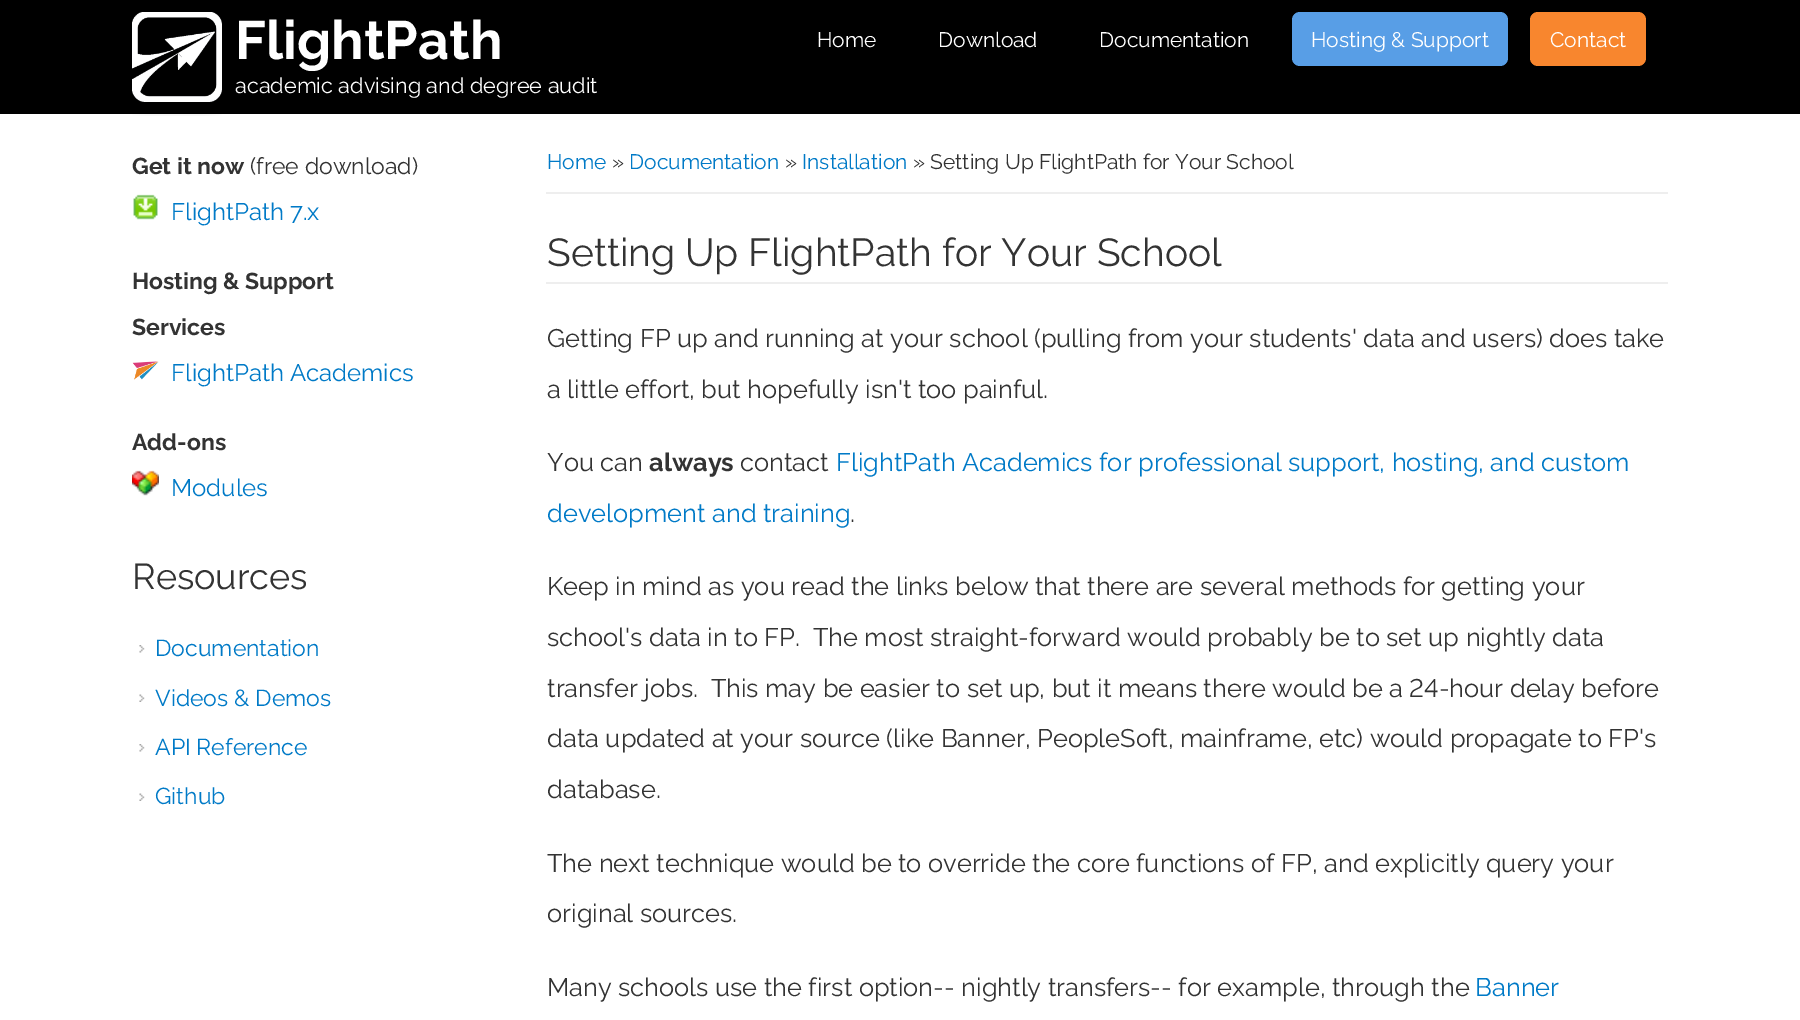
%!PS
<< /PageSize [1800 1020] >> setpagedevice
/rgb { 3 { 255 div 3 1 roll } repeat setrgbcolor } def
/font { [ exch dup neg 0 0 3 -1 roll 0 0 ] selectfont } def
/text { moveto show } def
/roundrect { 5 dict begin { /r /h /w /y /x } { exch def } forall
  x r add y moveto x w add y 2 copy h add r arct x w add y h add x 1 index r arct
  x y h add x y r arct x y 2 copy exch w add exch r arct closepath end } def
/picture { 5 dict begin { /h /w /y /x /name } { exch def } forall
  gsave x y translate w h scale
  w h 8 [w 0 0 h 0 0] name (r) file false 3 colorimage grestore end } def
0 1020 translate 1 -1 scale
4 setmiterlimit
255 255 255 rgb
0 0 1800 1020 rectfill
0 0 0 rgb
0 0 1800 114 rectfill
(img_01.rgb) 132 12 90 104 picture
88 158 230 rgb
1292 12 216 54 8 roundrect fill
248 134 46 rgb
1530 12 116 54 8 roundrect fill
(img_02.rgb) 133 194 25 26 picture
(img_03.rgb) 132 361 27 19 picture
(img_04.rgb) 132 470 27 26 picture
(img_05.rgb) 139 645 6 8 picture
(img_06.rgb) 139 694 6 8 picture
(img_05.rgb) 139 744 6 8 picture
(img_06.rgb) 139 793 6 8 picture
238 238 238 rgb
546 192 1122 2 rectfill
546 282 1122 2 rectfill
/Raleway-Bold 54 font
255 255 255 rgb
(FlightPath) 235 59 text
/Raleway-Regular 21.6 font
(academic advising and degree audit) 235 93 text
/Raleway-Regular 21 font
(Home) 817 47 text
(Download) 938 47 text
(Documentation) 1099 47 text
(Hosting & Support) 1311 47 text
(Contact) 1550 47 text
/Raleway-Bold 23 font
51 51 51 rgb
(Get it now) 132 174 text
/Raleway-Regular 23 font
(\(free download\)) 250 174 text
/Raleway-Regular 24 font
0 122 199 rgb
(FlightPath 7.x) 171 220 text
/Raleway-Bold 23 font
51 51 51 rgb
(Hosting & Support) 132 289 text
(Services) 132 335 text
/Raleway-Regular 24 font
0 122 199 rgb
(FlightPath Academics) 171 381 text
/Raleway-Bold 23 font
51 51 51 rgb
(Add-ons) 132 450 text
/Raleway-Regular 24 font
0 122 199 rgb
(Modules) 171 496 text
/Raleway-Regular 36 font
51 51 51 rgb
(Resources) 132 589 text
/Raleway-Regular 23 font
0 122 199 rgb
(Documentation) 155 656 text
(Videos & Demos) 155 706 text
(API Reference) 155 755 text
(Github) 155 804 text
/Raleway-Regular 21 font
(Home) 547 169 text
51 51 51 rgb
(») 612 169 text
0 122 199 rgb
(Documentation) 629 169 text
51 51 51 rgb
(») 785 169 text
0 122 199 rgb
(Installation) 802 169 text
51 51 51 rgb
(» Setting Up FlightPath for Your School) 913 169 text
/Raleway-Regular 39 font
(Setting Up FlightPath for Your School) 547 266 text
/Raleway-Regular 25.4 font
(Getting FP up and running at your school \(pulling from your students' data and users\) does take) 547 347 text
(a little effort, but hopefully isn't too painful.) 547 398 text
(You can) 547 471 text
/Raleway-Bold 25.4 font
(always) 649 471 text
/Raleway-Regular 25.4 font
(contact) 740 471 text
0 122 199 rgb
(FlightPath Academics for professional support, hosting, and custom) 836 471 text
(development and training) 547 522 text
51 51 51 rgb
(.) 850 522 text
(Keep in mind as you read the links below that there are several methods for getting your) 547 595 text
(school's data in to FP.  The most straight-forward would probably be to set up nightly data) 547 646 text
/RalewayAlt-Regular 25.4 font
(transfer jobs.  This may be easier to set up, but it means there would be a 24-hour delay before) 547 697 text
/Raleway-Regular 25.4 font
(data updated at your source \(like Banner, PeopleSoft, mainframe, etc\) would propagate to FP's) 547 747 text
(database.) 547 798 text
(The next technique would be to override the core functions of FP, and explicitly query your) 547 872 text
(original sources.) 547 922 text
(Many schools use the first option-- nightly transfers-- for example, through the) 547 996 text
0 122 199 rgb
(Banner) 1475 996 text
showpage
